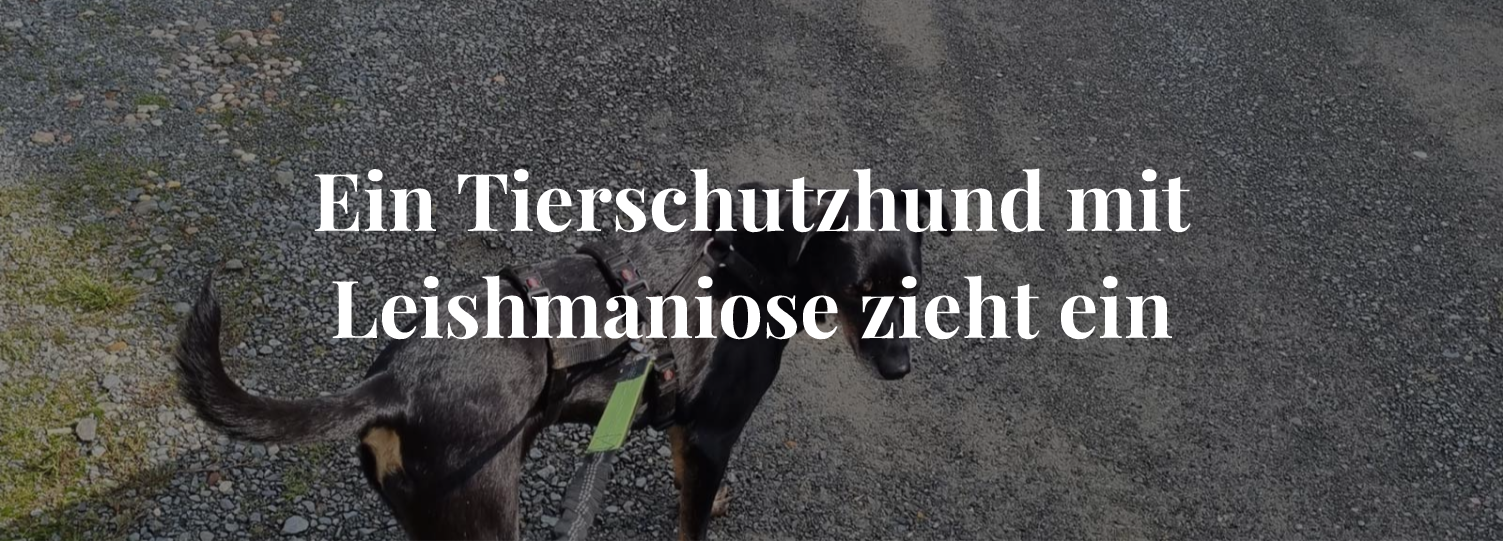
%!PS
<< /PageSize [1503 541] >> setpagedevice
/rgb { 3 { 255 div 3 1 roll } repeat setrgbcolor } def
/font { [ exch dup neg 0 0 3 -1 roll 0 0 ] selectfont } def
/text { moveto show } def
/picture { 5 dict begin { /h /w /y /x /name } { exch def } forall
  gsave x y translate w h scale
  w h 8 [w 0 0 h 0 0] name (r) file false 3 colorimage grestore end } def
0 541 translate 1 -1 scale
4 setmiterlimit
255 255 255 rgb
0 0 1503 541 rectfill
(img_01.rgb) 0 0 1503 541 picture
/PlayfairDisplay-Bold 80 font
(Ein Tierschutzhund mit) 312 231 text
(Leishmaniose zieht ein) 330 338 text
showpage
